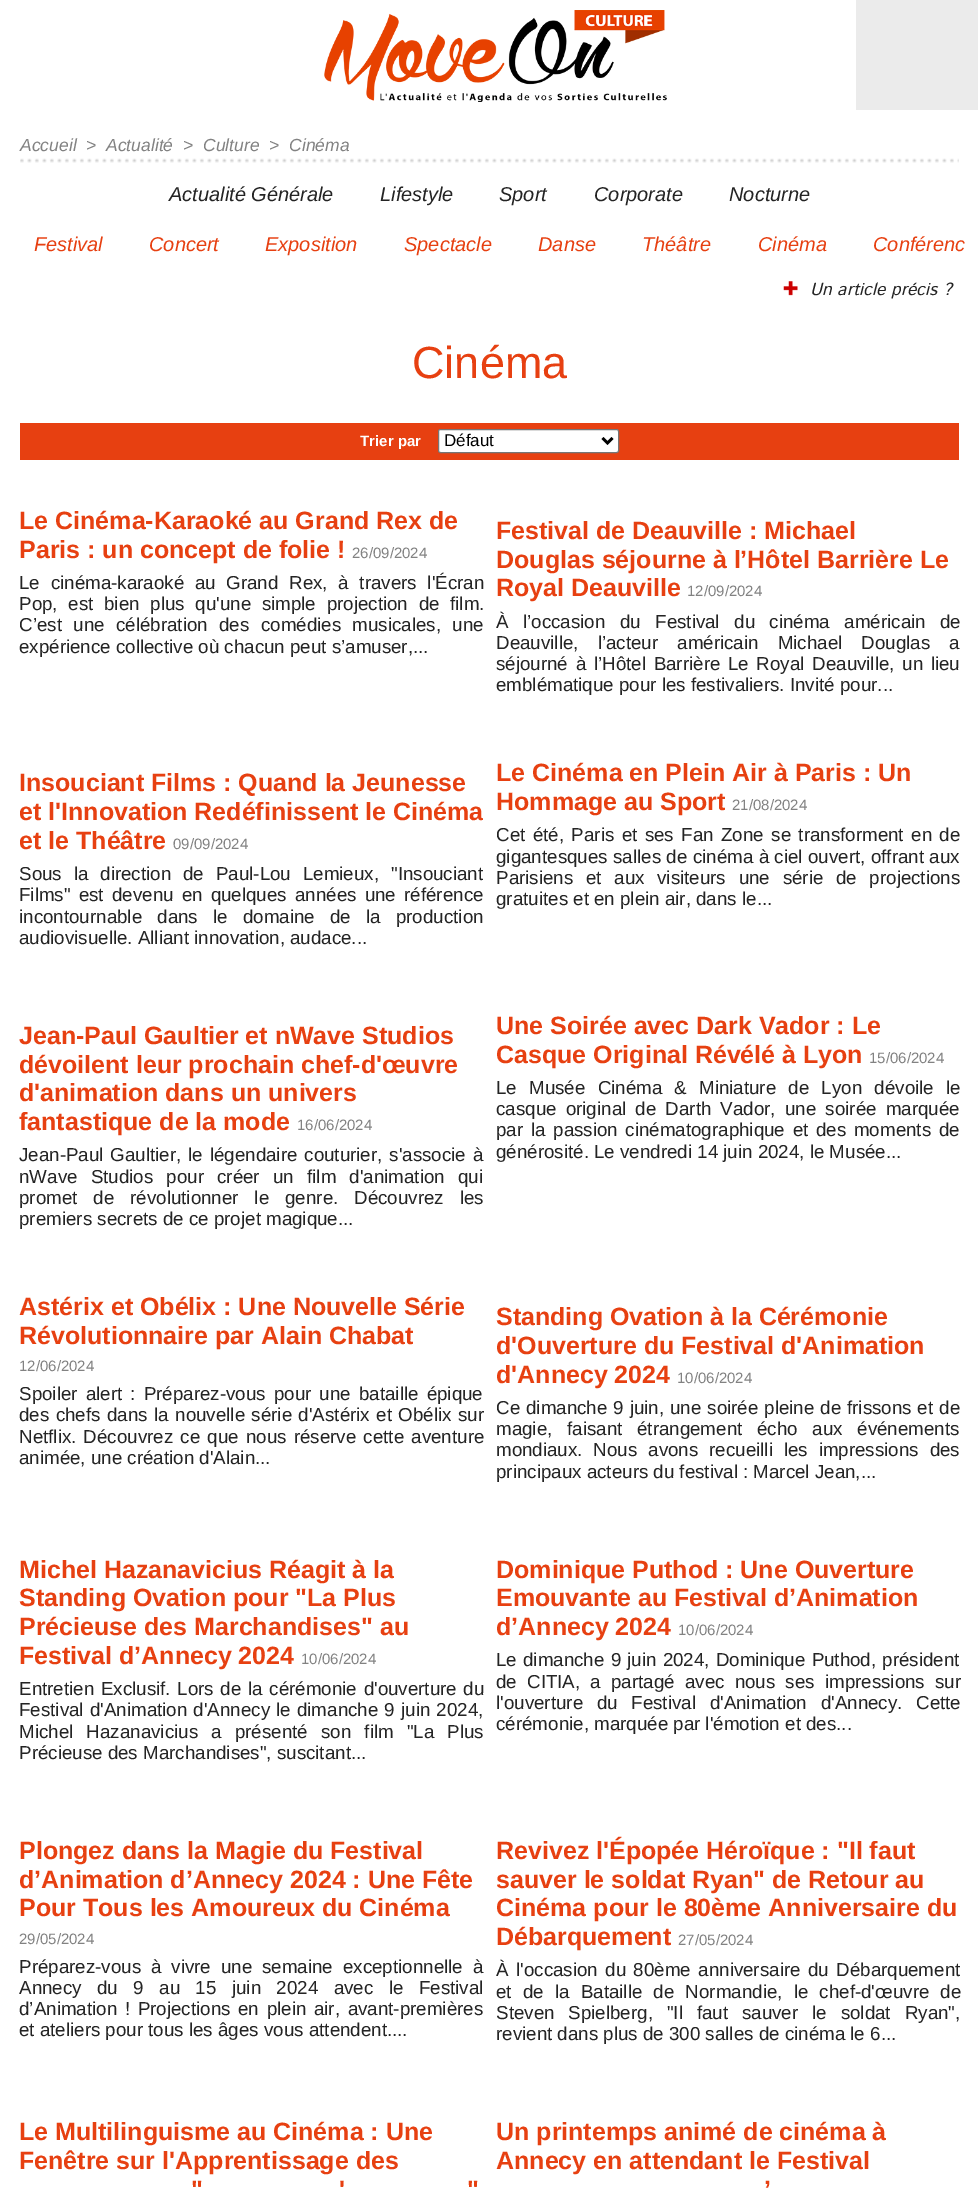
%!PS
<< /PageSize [978 2190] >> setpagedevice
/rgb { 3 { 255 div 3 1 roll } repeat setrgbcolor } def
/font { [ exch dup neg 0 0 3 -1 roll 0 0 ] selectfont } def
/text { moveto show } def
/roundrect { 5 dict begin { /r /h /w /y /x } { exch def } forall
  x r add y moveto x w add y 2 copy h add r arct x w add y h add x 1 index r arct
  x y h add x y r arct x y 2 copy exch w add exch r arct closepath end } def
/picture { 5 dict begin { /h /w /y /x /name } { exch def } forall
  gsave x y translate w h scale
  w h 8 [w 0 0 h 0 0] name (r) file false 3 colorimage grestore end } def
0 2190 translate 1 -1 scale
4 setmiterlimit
255 255 255 rgb
0 0 978 2190 rectfill
(img_01.rgb) 324 10 343 92 picture
235 235 235 rgb
856 0 122 110 rectfill
(img_02.rgb) 20 158 939 5 picture
(img_03.rgb) 783 281 15 15 picture
231 64 17 rgb
20 423 939 37 rectfill
255 255 255 rgb
438.5 429.5 180 23 2 roundrect gsave fill grestore
118 118 118 rgb
stroke
0 0 0 rgb
2.5 setlinewidth
602.5 438 moveto 5 5 rlineto 5 -5 rlineto stroke
/LiberationSans-Italic 17.5 font
130 130 130 rgb
(Accueil) 20 151 text
(>) 86 151 text
(Actualité) 106 151 text
(>) 183 151 text
(Culture) 203 151 text
(>) 269 151 text
(Cinéma) 289 151 text
/LiberationSans-Italic 20 font
36 36 36 rgb
(Actualité Générale) 169 201 text
(Lifestyle) 380 201 text
(Sport) 499 201 text
(Corporate) 594 201 text
(Nocturne) 729 201 text
231 64 17 rgb
(Festival) 34 251 text
(Concert) 149 251 text
(Exposition) 265 251 text
(Spectacle) 404 251 text
(Danse) 538 251 text
(Théâtre) 642 251 text
(Cinéma) 758 251 text
(Conférenc) 873 251 text
/IstokWeb-Italic 17.5 font
36 36 36 rgb
(Un article précis ?) 810 295 text
/LiberationSans-Regular 45 font
231 64 17 rgb
(Cinéma) 412 378 text
/LiberationSans-Bold 15 font
255 255 255 rgb
(Trier par) 360 446 text
/LiberationSans-Regular 17 font
0 0 0 rgb
(Défaut) 444 446 text
/LiberationSans-Bold 25 font
231 64 17 rgb
(Le Cinéma-Karaoké au Grand Rex de) 19 529 text
(Paris : un concept de folie !) 19 558 text
/LiberationSans-Regular 15 font
130 130 130 rgb
(26/09/2024) 352 558 text
/LiberationSans-Regular 18.75 font
36 36 36 rgb
19 589 moveto 5.5 0 32 (Le cinéma-karaoké au Grand Rex, à travers l'Écran) widthshow
19 610 moveto 5.5 0 32 (Pop, est bien plus qu'une simple projection de film.) widthshow
19 631 moveto 6.25 0 32 (C’est une célébration des comédies musicales, une) widthshow
(expérience collective où chacun peut s’amuser,...) 19 653 text
/LiberationSans-Bold 25 font
231 64 17 rgb
(Festival de Deauville : Michael) 496 539 text
(Douglas séjourne à l’Hôtel Barrière Le) 496 568 text
(Royal Deauville) 496 596 text
/LiberationSans-Regular 15 font
130 130 130 rgb
(12/09/2024) 687 596 text
/LiberationSans-Regular 18.75 font
36 36 36 rgb
496 628 moveto 9.25 0 32 (À l’occasion du Festival du cinéma américain de) widthshow
496 649 moveto 14 0 32 (Deauville, l’acteur américain Michael Douglas a) widthshow
496 670 moveto 2.5 0 32 (séjourné à l’Hôtel Barrière Le Royal Deauville, un lieu) widthshow
(emblématique pour les festivaliers. Invité pour...) 496 691 text
/LiberationSans-Bold 25 font
231 64 17 rgb
(Insouciant Films : Quand la Jeunesse) 19 791 text
(et l'Innovation Redéfinissent le Cinéma) 19 820 text
(et le Théâtre) 19 849 text
/LiberationSans-Regular 15 font
130 130 130 rgb
(09/09/2024) 173 849 text
/LiberationSans-Regular 18.75 font
36 36 36 rgb
19 880 moveto 6.75 0 32 (Sous la direction de Paul-Lou Lemieux, "Insouciant) widthshow
19 901 moveto 3 0 32 (Films" est devenu en quelques années une référence) widthshow
19 923 moveto 10 0 32 (incontournable dans le domaine de la production) widthshow
(audiovisuelle. Alliant innovation, audace...) 19 944 text
/LiberationSans-Bold 25 font
231 64 17 rgb
(Le Cinéma en Plein Air à Paris : Un) 496 781 text
(Hommage au Sport) 496 810 text
/LiberationSans-Regular 15 font
130 130 130 rgb
(21/08/2024) 732 810 text
/LiberationSans-Regular 18.75 font
36 36 36 rgb
496 841 moveto 2.25 0 32 (Cet été, Paris et ses Fan Zone se transforment en de) widthshow
496 863 moveto 0.25 0 32 (gigantesques salles de cinéma à ciel ouvert, offrant aux) widthshow
496 884 moveto 7.5 0 32 (Parisiens et aux visiteurs une série de projections) widthshow
(gratuites et en plein air, dans le...) 496 905 text
/LiberationSans-Bold 25 font
231 64 17 rgb
(Jean-Paul Gaultier et nWave Studios) 19 1044 text
(dévoilent leur prochain chef-d'œuvre) 19 1073 text
(d'animation dans un univers) 19 1101 text
(fantastique de la mode) 19 1130 text
/LiberationSans-Regular 15 font
130 130 130 rgb
(16/06/2024) 297 1130 text
/LiberationSans-Regular 18.75 font
36 36 36 rgb
19 1161 moveto 1.75 0 32 (Jean-Paul Gaultier, le légendaire couturier, s'associe à) widthshow
19 1183 moveto 8 0 32 (nWave Studios pour créer un film d'animation qui) widthshow
19 1204 moveto 10.75 0 32 (promet de révolutionner le genre. Découvrez les) widthshow
(premiers secrets de ce projet magique...) 19 1225 text
/LiberationSans-Bold 25 font
231 64 17 rgb
(Une Soirée avec Dark Vador : Le) 496 1034 text
(Casque Original Révélé à Lyon) 496 1063 text
/LiberationSans-Regular 15 font
130 130 130 rgb
(15/06/2024) 869 1063 text
/LiberationSans-Regular 18.75 font
36 36 36 rgb
496 1094 moveto 7 0 32 (Le Musée Cinéma & Miniature de Lyon dévoile le) widthshow
496 1115 moveto 4 0 32 (casque original de Darth Vador, une soirée marquée) widthshow
496 1136 moveto 2.5 0 32 (par la passion cinématographique et des moments de) widthshow
(générosité. Le vendredi 14 juin 2024, le Musée...) 496 1158 text
/LiberationSans-Bold 25 font
231 64 17 rgb
(Astérix et Obélix : Une Nouvelle Série) 19 1315 text
(Révolutionnaire par Alain Chabat) 19 1344 text
/LiberationSans-Regular 15 font
130 130 130 rgb
(12/06/2024) 19 1371 text
/LiberationSans-Regular 18.75 font
36 36 36 rgb
19 1400 moveto 3 0 32 (Spoiler alert : Préparez-vous pour une bataille épique) widthshow
19 1421 moveto 1.25 0 32 (des chefs dans la nouvelle série d'Astérix et Obélix sur) widthshow
19 1443 moveto 2 0 32 (Netflix. Découvrez ce que nous réserve cette aventure) widthshow
(animée, une création d'Alain...) 19 1464 text
/LiberationSans-Bold 25 font
231 64 17 rgb
(Standing Ovation à la Cérémonie) 496 1325 text
(d'Ouverture du Festival d'Animation) 496 1354 text
(d'Annecy 2024) 496 1383 text
/LiberationSans-Regular 15 font
130 130 130 rgb
(10/06/2024) 677 1383 text
/LiberationSans-Regular 18.75 font
36 36 36 rgb
496 1414 moveto 0.75 0 32 (Ce dimanche 9 juin, une soirée pleine de frissons et de) widthshow
496 1435 moveto 9.5 0 32 (magie, faisant étrangement écho aux événements) widthshow
496 1456 moveto 5.75 0 32 (mondiaux. Nous avons recueilli les impressions des) widthshow
(principaux acteurs du festival : Marcel Jean,...) 496 1478 text
/LiberationSans-Bold 25 font
231 64 17 rgb
(Michel Hazanavicius Réagit à la) 19 1578 text
(Standing Ovation pour "La Plus) 19 1606 text
(Précieuse des Marchandises" au) 19 1635 text
(Festival d’Annecy 2024) 19 1664 text
/LiberationSans-Regular 15 font
130 130 130 rgb
(10/06/2024) 301 1664 text
/LiberationSans-Regular 18.75 font
36 36 36 rgb
19 1695 moveto 1.5 0 32 (Entretien Exclusif. Lors de la cérémonie d'ouverture du) widthshow
19 1716 moveto 1 0 32 (Festival d'Animation d'Annecy le dimanche 9 juin 2024,) widthshow
19 1738 moveto 8 0 32 (Michel Hazanavicius a présenté son film "La Plus) widthshow
(Précieuse des Marchandises", suscitant...) 19 1759 text
/LiberationSans-Bold 25 font
231 64 17 rgb
(Dominique Puthod : Une Ouverture) 496 1578 text
(Emouvante au Festival d’Animation) 496 1606 text
(d’Annecy 2024) 496 1635 text
/LiberationSans-Regular 15 font
130 130 130 rgb
(10/06/2024) 678 1635 text
/LiberationSans-Regular 18.75 font
36 36 36 rgb
496 1666 moveto 1 0 32 (Le dimanche 9 juin 2024, Dominique Puthod, président) widthshow
496 1688 moveto 5 0 32 (de CITIA, a partagé avec nous ses impressions sur) widthshow
496 1709 moveto 8.5 0 32 (l'ouverture du Festival d'Animation d'Annecy. Cette) widthshow
(cérémonie, marquée par l'émotion et des...) 496 1730 text
/LiberationSans-Bold 25 font
231 64 17 rgb
(Plongez dans la Magie du Festival) 19 1859 text
(d’Animation d’Annecy 2024 : Une Fête) 19 1888 text
(Pour Tous les Amoureux du Cinéma) 19 1916 text
/LiberationSans-Regular 15 font
130 130 130 rgb
(29/05/2024) 19 1944 text
/LiberationSans-Regular 18.75 font
36 36 36 rgb
19 1973 moveto 4.75 0 32 (Préparez-vous à vivre une semaine exceptionnelle à) widthshow
19 1994 moveto 10.25 0 32 (Annecy du 9 au 15 juin 2024 avec le Festival) widthshow
19 2015 moveto 2.5 0 32 (d’Animation ! Projections en plein air, avant-premières) widthshow
(et ateliers pour tous les âges vous attendent....) 19 2036 text
/LiberationSans-Bold 25 font
231 64 17 rgb
(Revivez l'Épopée Héroïque : "Il faut) 496 1859 text
(sauver le soldat Ryan" de Retour au) 496 1888 text
(Cinéma pour le 80ème Anniversaire du) 496 1916 text
(Débarquement) 496 1945 text
/LiberationSans-Regular 15 font
130 130 130 rgb
(27/05/2024) 678 1945 text
/LiberationSans-Regular 18.75 font
36 36 36 rgb
496 1976 moveto 2.25 0 32 (À l'occasion du 80ème anniversaire du Débarquement) widthshow
496 1998 moveto 6 0 32 (et de la Bataille de Normandie, le chef-d'œuvre de) widthshow
496 2019 moveto 8.75 0 32 (Steven Spielberg, "Il faut sauver le soldat Ryan",) widthshow
(revient dans plus de 300 salles de cinéma le 6...) 496 2040 text
/LiberationSans-Bold 25 font
231 64 17 rgb
(Le Multilinguisme au Cinéma : Une) 19 2140 text
(Fenêtre sur l'Apprentissage des) 19 2169 text
(") 191 2198 text
(') 339 2198 text
(") 467 2198 text
(Un printemps animé de cinéma à) 496 2140 text
(Annecy en attendant le Festival) 496 2169 text
(’) 764 2198 text
showpage
